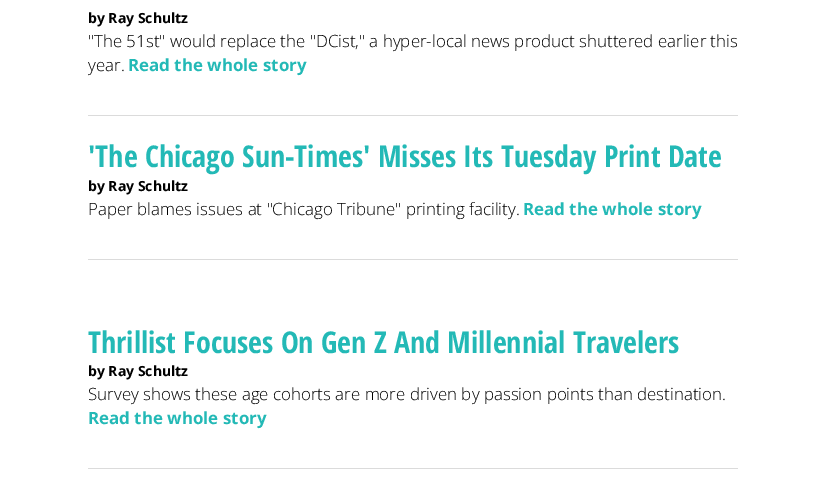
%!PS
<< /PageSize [825 488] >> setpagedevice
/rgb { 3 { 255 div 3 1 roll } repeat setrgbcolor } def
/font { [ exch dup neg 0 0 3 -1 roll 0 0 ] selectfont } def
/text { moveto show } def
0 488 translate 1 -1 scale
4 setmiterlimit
255 255 255 rgb
0 0 825 488 rectfill
219 219 219 rgb
88 115 650 1 rectfill
88 259 650 1 rectfill
88 468 650 1 rectfill
/OpenSans-Bold 14 font
0 0 0 rgb
(by Ray Schultz) 88 23 text
/OpenSans-Light 16.9 font
("The 51st" would replace the "DCist," a hyper-local news product shuttered earlier this) 88 47 text
(year.) 88 71 text
/OpenSans-Bold 16.9 font
35 185 182 rgb
(Read the whole story) 128 71 text
/OpenSansCondensed-Bold 30 font
('The Chicago Sun-Times' Misses Its Tuesday Print Date) 88 167 text
/OpenSans-Bold 14 font
0 0 0 rgb
(by Ray Schultz) 88 191 text
/OpenSans-Light 16.9 font
(Paper blames issues at "Chicago Tribune" printing facility.) 88 215 text
/OpenSans-Bold 16.9 font
35 185 182 rgb
(Read the whole story) 523 215 text
/OpenSansCondensed-Bold 30 font
(Thrillist Focuses On Gen Z And Millennial Travelers) 88 353 text
/OpenSans-Bold 14 font
0 0 0 rgb
(by Ray Schultz) 88 376 text
/OpenSans-Light 16.9 font
(Survey shows these age cohorts are more driven by passion points than destination.) 88 400 text
/OpenSans-Bold 16.9 font
35 185 182 rgb
(Read the whole story) 88 424 text
showpage
